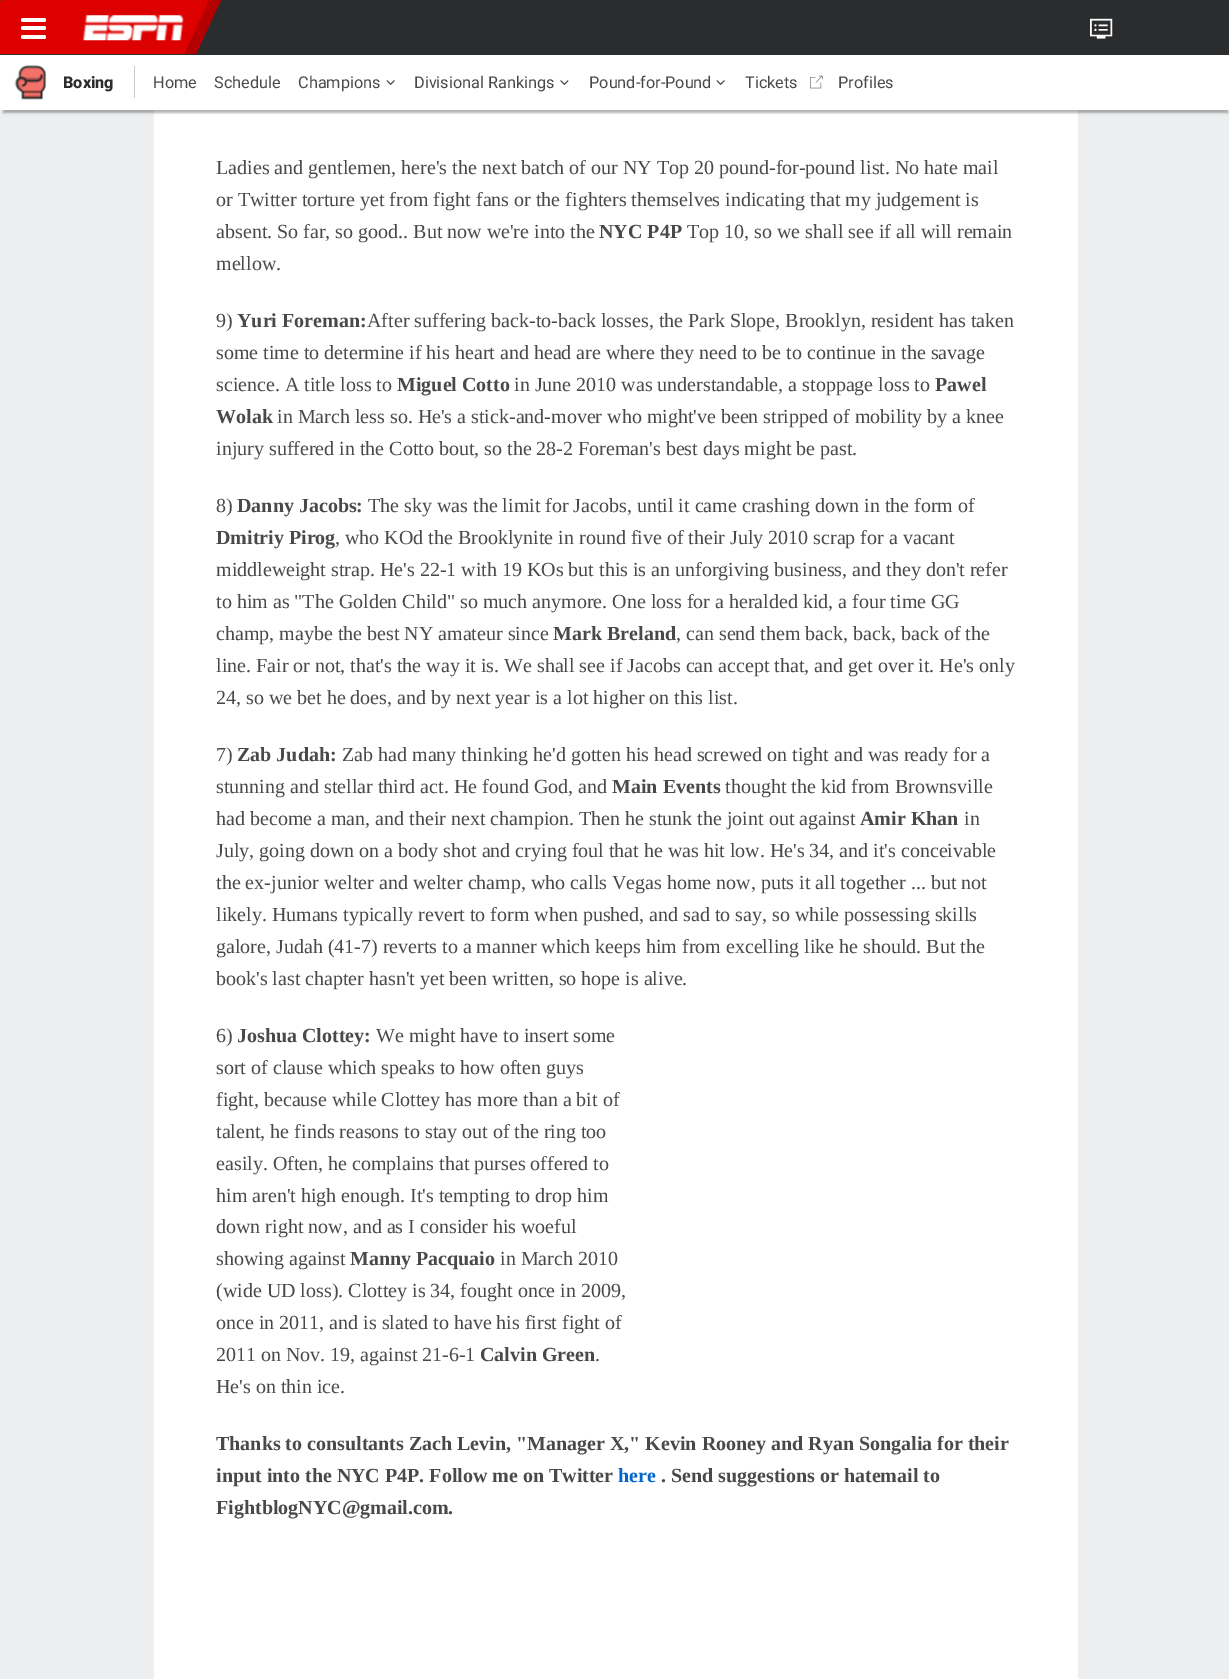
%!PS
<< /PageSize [1229 1679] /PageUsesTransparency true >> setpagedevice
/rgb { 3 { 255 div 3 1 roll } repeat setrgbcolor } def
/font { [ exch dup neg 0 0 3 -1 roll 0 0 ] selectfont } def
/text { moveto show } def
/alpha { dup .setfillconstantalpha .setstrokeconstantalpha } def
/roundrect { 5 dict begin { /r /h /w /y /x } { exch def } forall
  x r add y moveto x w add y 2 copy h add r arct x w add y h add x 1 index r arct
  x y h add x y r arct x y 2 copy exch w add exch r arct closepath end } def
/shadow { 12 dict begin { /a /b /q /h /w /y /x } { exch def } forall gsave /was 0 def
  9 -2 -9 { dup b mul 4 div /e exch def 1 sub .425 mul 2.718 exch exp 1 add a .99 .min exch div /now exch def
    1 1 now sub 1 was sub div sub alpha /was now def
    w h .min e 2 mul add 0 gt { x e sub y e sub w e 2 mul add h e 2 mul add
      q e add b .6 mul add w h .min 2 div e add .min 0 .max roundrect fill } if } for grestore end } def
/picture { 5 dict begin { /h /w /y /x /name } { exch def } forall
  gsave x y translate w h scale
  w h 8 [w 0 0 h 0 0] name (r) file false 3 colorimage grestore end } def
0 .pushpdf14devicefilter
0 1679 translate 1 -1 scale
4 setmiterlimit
237 238 240 rgb
0 0 1229 1679 rectfill
43 44 45 rgb
0 0 1229 55 rectfill
180 0 0 rgb
68 0 moveto 153 0 rlineto -25 54 rlineto -154 0 rlineto closepath fill
221 0 0 rgb
1 0 moveto 208 0 rlineto -25 54 rlineto -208 0 rlineto closepath fill
(img_01.rgb) 83 15 101 26 picture
255 255 255 rgb
21 26 25 4 2 roundrect fill
21 18 25 4 2 roundrect fill
21 35 25 4 2 roundrect fill
(img_02.rgb) 1090 18 23 21 picture
241 242 243 rgb
153 110 1 1569 rectfill
255 255 255 rgb
154 110 924 1569 rectfill
0 0 0 rgb
3 63 1225 50 0 1 0.3 shadow
255 255 255 rgb
0 55 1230 55 1 roundrect fill
(img_03.rgb) 14 65 33 35 picture
203 204 206 rgb
134 66 1 32 rectfill
(img_04.rgb) 386 80 9 6 picture
(img_05.rgb) 560 80 9 6 picture
(img_04.rgb) 716 80 9 6 picture
(img_06.rgb) 810 75 13 14 picture
/Roboto-ExtraBold 16.25 font
43 44 45 rgb
(Boxing) 63 88 text
/Roboto-Regular 16.25 font
72 73 74 rgb
(Home) 153 88 text
(Schedule) 214 88 text
(Champions) 298 88 text
(Divisional Rankings) 414 88 text
(Pound-for-Pound) 589 88 text
(Tickets) 745 88 text
(Profiles) 838 88 text
/LiberationSerif-Regular 20 font
(Ladies and gentlemen, here's the next batch of our NY Top 20 pound-for-pound list. No hate mail) 216 174 text
(or Twitter torture yet from fight fans or the fighters themselves indicating that my judgement is) 216 206 text
(absent. So far, so good.. But now we're into the) 216 238 text
/LiberationSerif-Bold 20 font
(NYC P4P) 599 238 text
/LiberationSerif-Regular 20 font
(Top 10, so we shall see if all will remain) 687 238 text
(mellow.) 216 270 text
(9\)) 216 327 text
/LiberationSerif-Bold 20 font
(Yuri Foreman:) 237 327 text
/LiberationSerif-Regular 20 font
(After suffering back-to-back losses, the Park Slope, Brooklyn, resident has taken) 367 327 text
(some time to determine if his heart and head are where they need to be to continue in the savage) 216 359 text
(science. A title loss to) 216 391 text
/LiberationSerif-Bold 20 font
(Miguel Cotto) 397 391 text
/LiberationSerif-Regular 20 font
(in June 2010 was understandable, a stoppage loss to) 514 391 text
/LiberationSerif-Bold 20 font
(Pawel) 935 391 text
(Wolak) 216 423 text
/LiberationSerif-Regular 20 font
(in March less so. He's a stick-and-mover who might've been stripped of mobility by a knee) 277 423 text
(injury suffered in the Cotto bout, so the 28-2 Foreman's best days might be past.) 216 455 text
(8\)) 216 512 text
/LiberationSerif-Bold 20 font
(Danny Jacobs:) 237 512 text
/LiberationSerif-Regular 20 font
(The sky was the limit for Jacobs, until it came crashing down in the form of) 368 512 text
/LiberationSerif-Bold 20 font
(Dmitriy Pirog) 216 544 text
/LiberationSerif-Regular 20 font
(, who KOd the Brooklynite in round five of their July 2010 scrap for a vacant) 335 544 text
(middleweight strap. He's 22-1 with 19 KOs but this is an unforgiving business, and they don't refer) 216 576 text
(to him as "The Golden Child" so much anymore. One loss for a heralded kid, a four time GG) 216 608 text
(champ, maybe the best NY amateur since) 216 640 text
/LiberationSerif-Bold 20 font
(Mark Breland) 553 640 text
/LiberationSerif-Regular 20 font
(, can send them back, back, back of the) 676 640 text
(line. Fair or not, that's the way it is. We shall see if Jacobs can accept that, and get over it. He's only) 216 672 text
(24, so we bet he does, and by next year is a lot higher on this list.) 216 704 text
(7\)) 216 761 text
/LiberationSerif-Bold 20 font
(Zab Judah:) 237 761 text
/LiberationSerif-Regular 20 font
(Zab had many thinking he'd gotten his head screwed on tight and was ready for a) 342 761 text
(stunning and stellar third act. He found God, and) 216 793 text
/LiberationSerif-Bold 20 font
(Main Events) 612 793 text
/LiberationSerif-Regular 20 font
(thought the kid from Brownsville) 725 793 text
(had become a man, and their next champion. Then he stunk the joint out against) 216 825 text
/LiberationSerif-Bold 20 font
(Amir Khan) 860 825 text
/LiberationSerif-Regular 20 font
(in) 964 825 text
(July, going down on a body shot and crying foul that he was hit low. He's 34, and it's conceivable) 216 857 text
(the ex-junior welter and welter champ, who calls Vegas home now, puts it all together ... but not) 216 889 text
(likely. Humans typically revert to form when pushed, and sad to say, so while possessing skills) 216 921 text
(galore, Judah \(41-7\) reverts to a manner which keeps him from excelling like he should. But the) 216 953 text
(book's last chapter hasn't yet been written, so hope is alive.) 216 985 text
(6\)) 216 1042 text
/LiberationSerif-Bold 20 font
(Joshua Clottey:) 237 1042 text
/LiberationSerif-Regular 20 font
(We might have to insert some) 376 1042 text
(sort of clause which speaks to how often guys) 216 1074 text
(fight, because while Clottey has more than a bit of) 216 1106 text
(talent, he finds reasons to stay out of the ring too) 216 1138 text
(easily. Often, he complains that purses offered to) 216 1170 text
(him aren't high enough. It's tempting to drop him) 216 1202 text
(down right now, and as I consider his woeful) 216 1233 text
(showing against) 216 1265 text
/LiberationSerif-Bold 20 font
(Manny Pacquaio) 350 1265 text
/LiberationSerif-Regular 20 font
(in March 2010) 500 1265 text
(\(wide UD loss\). Clottey is 34, fought once in 2009,) 216 1297 text
(once in 2011, and is slated to have his first fight of) 216 1329 text
(2011 on Nov. 19, against 21-6-1) 216 1361 text
/LiberationSerif-Bold 20 font
(Calvin Green) 480 1361 text
/LiberationSerif-Regular 20 font
(.) 595 1361 text
(He's on thin ice.) 216 1393 text
/LiberationSerif-Bold 20 font
(Thanks to consultants Zach Levin, "Manager X," Kevin Rooney and Ryan Songalia for their) 216 1450 text
(input into the NYC P4P. Follow me on Twitter) 216 1482 text
0 102 204 rgb
(here) 618 1482 text
72 73 74 rgb
(. Send suggestions or hatemail to) 661 1482 text
(FightblogNYC@gmail.com.) 216 1514 text
.poppdf14devicefilter showpage
